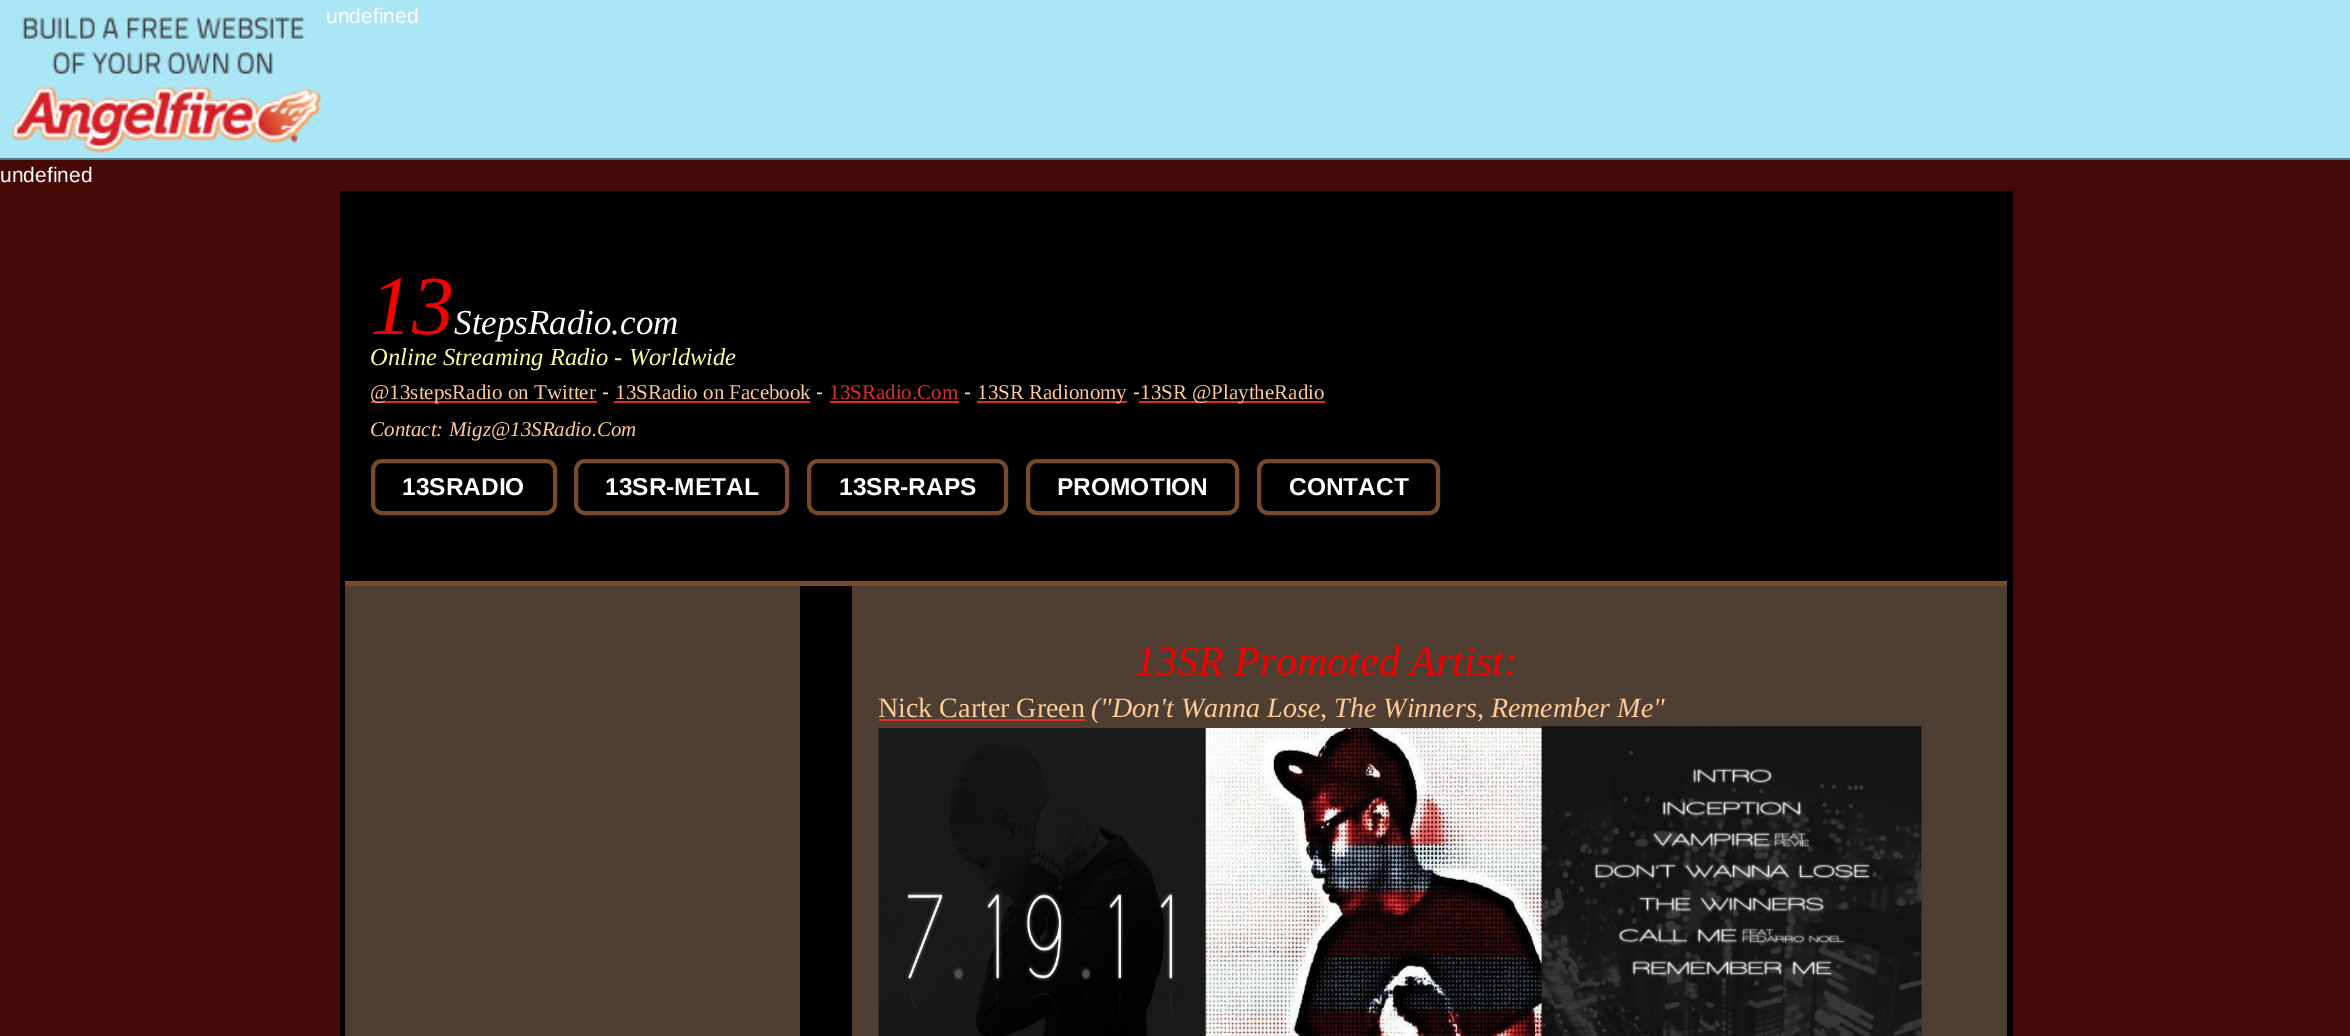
%!PS
<< /PageSize [2350 1036] >> setpagedevice
/rgb { 3 { 255 div 3 1 roll } repeat setrgbcolor } def
/font { [ exch dup neg 0 0 3 -1 roll 0 0 ] selectfont } def
/text { moveto show } def
/roundrect { 5 dict begin { /r /h /w /y /x } { exch def } forall
  x r add y moveto x w add y 2 copy h add r arct x w add y h add x 1 index r arct
  x y h add x y r arct x y 2 copy exch w add exch r arct closepath end } def
/picture { 5 dict begin { /h /w /y /x /name } { exch def } forall
  gsave x y translate w h scale
  w h 8 [w 0 0 h 0 0] name (r) file false 3 colorimage grestore end } def
0 1036 translate 1 -1 scale
4 setmiterlimit
71 8 8 rgb
0 0 2350 1036 rectfill
171 230 246 rgb
0 0 2350 158 rectfill
80 122 135 rgb
0 158 2350 2 rectfill
(img_01.rgb) 0 14 322 141 picture
0 0 0 rgb
340 191 1673 845 rectfill
217 50 45 rgb
371 401 226 2 rectfill
614 401 196 2 rectfill
830 401 129 2 rectfill
977 401 150 2 rectfill
1139 401 186 2 rectfill
119 74 43 rgb
4 setlinewidth
373 461 182 52 9 roundrect stroke
576 461 211 52 9 roundrect stroke
809 461 197 52 9 roundrect stroke
1028 461 209 52 9 roundrect stroke
1259 461 179 52 9 roundrect stroke
345 581 1662 5 rectfill
79 63 51 rgb
345 586 455 450 rectfill
852 586 1155 450 rectfill
217 50 45 rgb
879 719 206 2 rectfill
(img_02.rgb) 878 728 328 308 picture
(img_03.rgb) 1205 728 337 308 picture
(img_04.rgb) 1541 726 381 310 picture
/LiberationSans-Regular 21 font
255 255 255 rgb
(undefined) 326 23 text
(undefined) 0 182 text
/LiberationSerif-Italic 84 font
244 0 0 rgb
(13) 370 334 text
/LiberationSerif-Italic 35 font
255 255 255 rgb
(StepsRadio.com) 454 334 text
/LiberationSerif-Italic 24.5 font
255 255 153 rgb
(Online Streaming Radio - Worldwide) 370 365 text
/LiberationSerif-Regular 21 font
255 204 153 rgb
(@13stepsRadio on Twitter) 370 399 text
/LiberationSans-Regular 21 font
(-) 602 399 text
/LiberationSerif-Regular 21 font
(13SRadio on Facebook) 615 399 text
/LiberationSans-Regular 21 font
(-) 816 399 text
/LiberationSerif-Regular 21 font
217 50 45 rgb
(13SRadio.Com) 829 399 text
/LiberationSans-Regular 21 font
255 204 153 rgb
(-) 964 399 text
/LiberationSerif-Regular 21 font
(13SR Radionomy) 977 399 text
/LiberationSans-Regular 21 font
(-) 1133 399 text
/LiberationSerif-Regular 21 font
(13SR @PlaytheRadio) 1140 399 text
/LiberationSerif-Italic 21 font
(Contact: Migz@13SRadio.Com) 370 436 text
/LiberationSans-Bold 24.5 font
255 255 255 rgb
(13SRADIO) 402 495 text
(13SR-METAL) 605 495 text
(13SR-RAPS) 839 495 text
(PROMOTION) 1057 495 text
(CONTACT) 1289 495 text
/LiberationSerif-Italic 42 font
244 0 0 rgb
(13SR Promoted Artist:) 1135 675 text
/LiberationSerif-Regular 28 font
255 204 153 rgb
(Nick Carter Green) 878 717 text
/LiberationSerif-Italic 28 font
(\("Don't Wanna Lose, The Winners, Remember Me") 1091 717 text
showpage
